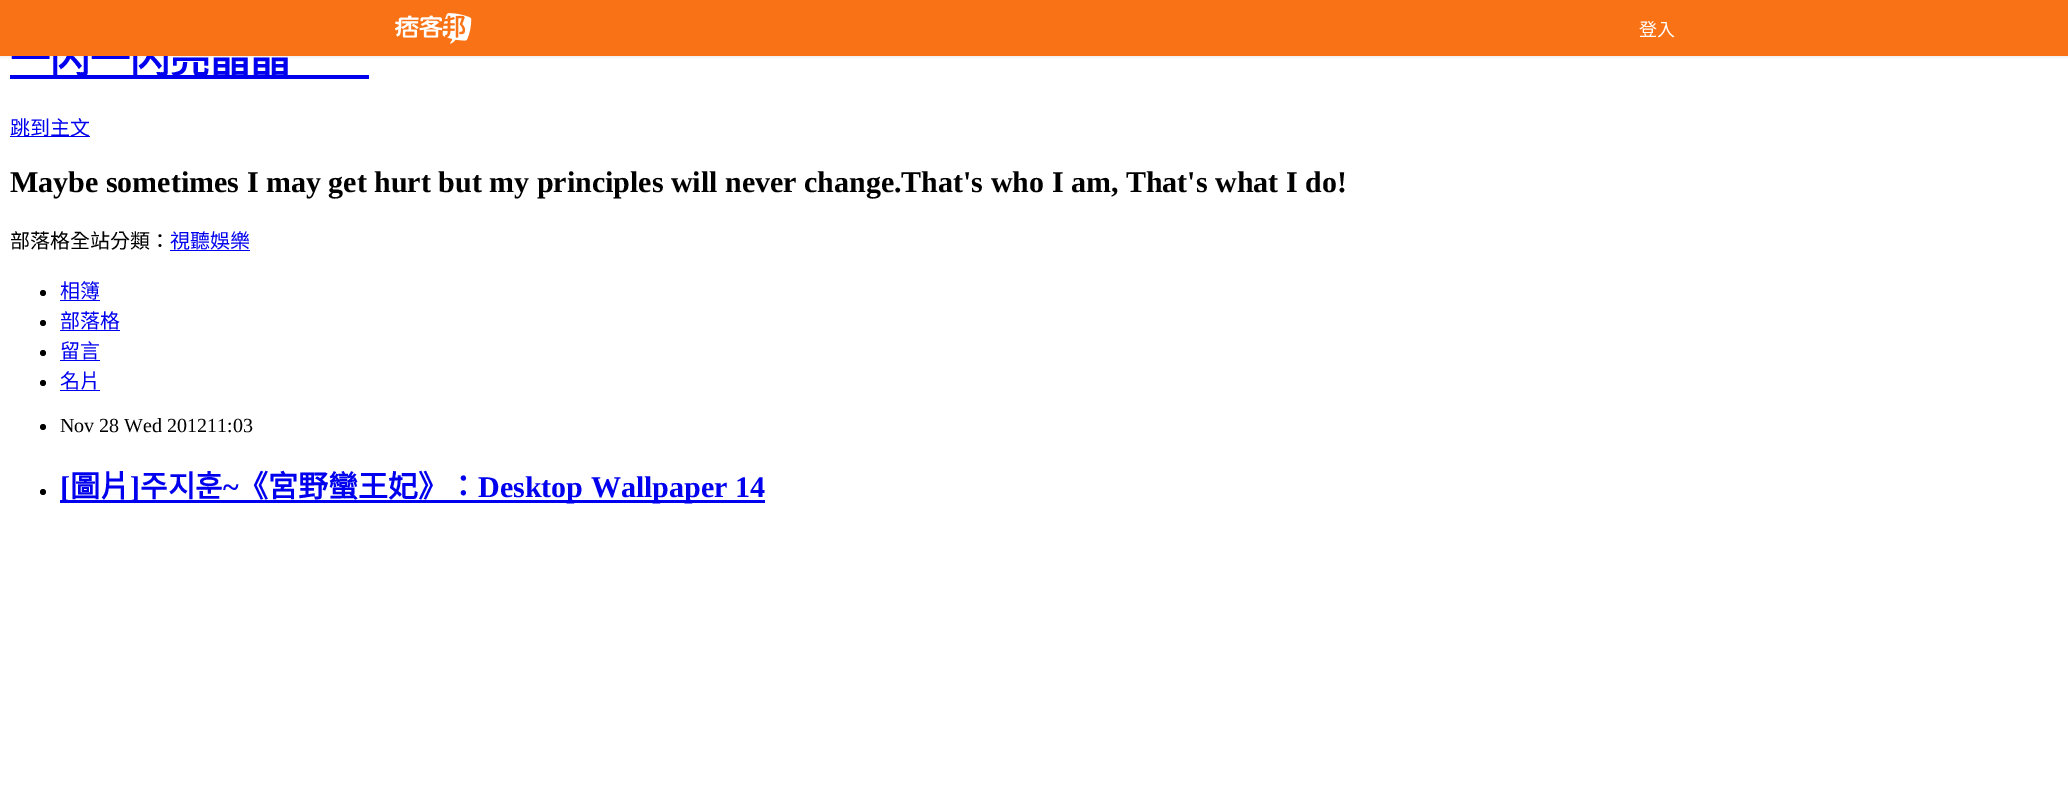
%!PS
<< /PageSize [2068 792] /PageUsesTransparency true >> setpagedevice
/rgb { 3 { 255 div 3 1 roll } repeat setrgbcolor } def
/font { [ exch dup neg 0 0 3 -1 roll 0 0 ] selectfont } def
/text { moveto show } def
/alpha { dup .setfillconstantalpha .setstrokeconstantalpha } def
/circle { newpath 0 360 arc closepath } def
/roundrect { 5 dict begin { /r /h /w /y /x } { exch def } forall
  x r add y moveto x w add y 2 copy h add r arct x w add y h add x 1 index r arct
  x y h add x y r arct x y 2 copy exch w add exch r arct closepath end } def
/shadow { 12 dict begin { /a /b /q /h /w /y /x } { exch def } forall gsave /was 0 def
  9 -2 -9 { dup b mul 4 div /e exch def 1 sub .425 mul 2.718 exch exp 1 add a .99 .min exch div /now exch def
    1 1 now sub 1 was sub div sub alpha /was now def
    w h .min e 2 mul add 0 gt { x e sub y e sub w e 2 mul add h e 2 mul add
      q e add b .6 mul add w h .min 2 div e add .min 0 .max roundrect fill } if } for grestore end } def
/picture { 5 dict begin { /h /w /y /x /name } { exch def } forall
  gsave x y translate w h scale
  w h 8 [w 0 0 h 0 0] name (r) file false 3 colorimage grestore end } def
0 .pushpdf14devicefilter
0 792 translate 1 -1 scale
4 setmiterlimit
255 255 255 rgb
0 0 2068 792 rectfill
0 0 0 rgb
0 1 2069 57 0 1 0.05 shadow
0 0 238 rgb
10 75 359 4 rectfill
10 136 80 1 rectfill
170 250 80 1 rectfill
0 0 0 rgb
43 293 3 circle fill
0 0 238 rgb
60 300 40 1 rectfill
0 0 0 rgb
43 323 3 circle fill
0 0 238 rgb
60 330 60 1 rectfill
0 0 0 rgb
43 353 3 circle fill
0 0 238 rgb
60 360 40 1 rectfill
0 0 0 rgb
43 383 3 circle fill
0 0 238 rgb
60 390 40 1 rectfill
0 0 0 rgb
43 427 3 circle fill
43 492 3 circle fill
0 0 238 rgb
60 500 705 3 rectfill
/NotoSansCJKTC-Bold 40 font
(一闪一闪亮晶晶) 10 73 text
249 115 22 rgb
0 0 2068 56 rectfill
/NotoSansCJKTC-Regular 18 font
255 255 255 rgb
(登入) 1639 36 text
(img_01.rgb) 395 13 77 31 picture
/NotoSansCJKTC-Regular 20 font
0 0 238 rgb
(跳到主文) 10 135 text
/LiberationSerif-Bold 30 font
0 0 0 rgb
(Maybe sometimes I may get hurt but my principles will never change.That's who I am, That's what I do!) 10 192 text
/NotoSansCJKTC-Regular 20 font
(部落格全站分類：) 10 248 text
0 0 238 rgb
(視聽娛樂) 170 248 text
(相簿) 60 298 text
(部落格) 60 328 text
(留言) 60 358 text
(名片) 60 388 text
/LiberationSerif-Regular 20 font
0 0 0 rgb
(Nov 28 Wed 201211:03) 60 432 text
/LiberationSerif-Bold 30 font
0 0 238 rgb
([) 60 497 text
/NotoSansCJKTC-Bold 30 font
(圖片) 70 497 text
/LiberationSerif-Bold 30 font
(]) 130 497 text
/NotoSansCJKTC-Bold 30 font
(주지훈) 140 497 text
/LiberationSerif-Bold 30 font
(~) 223 497 text
/NotoSansCJKTC-Bold 30 font
(《宮野蠻王妃》：) 238 497 text
/LiberationSerif-Bold 30 font
(Desktop Wallpaper 14) 478 497 text
.poppdf14devicefilter showpage
